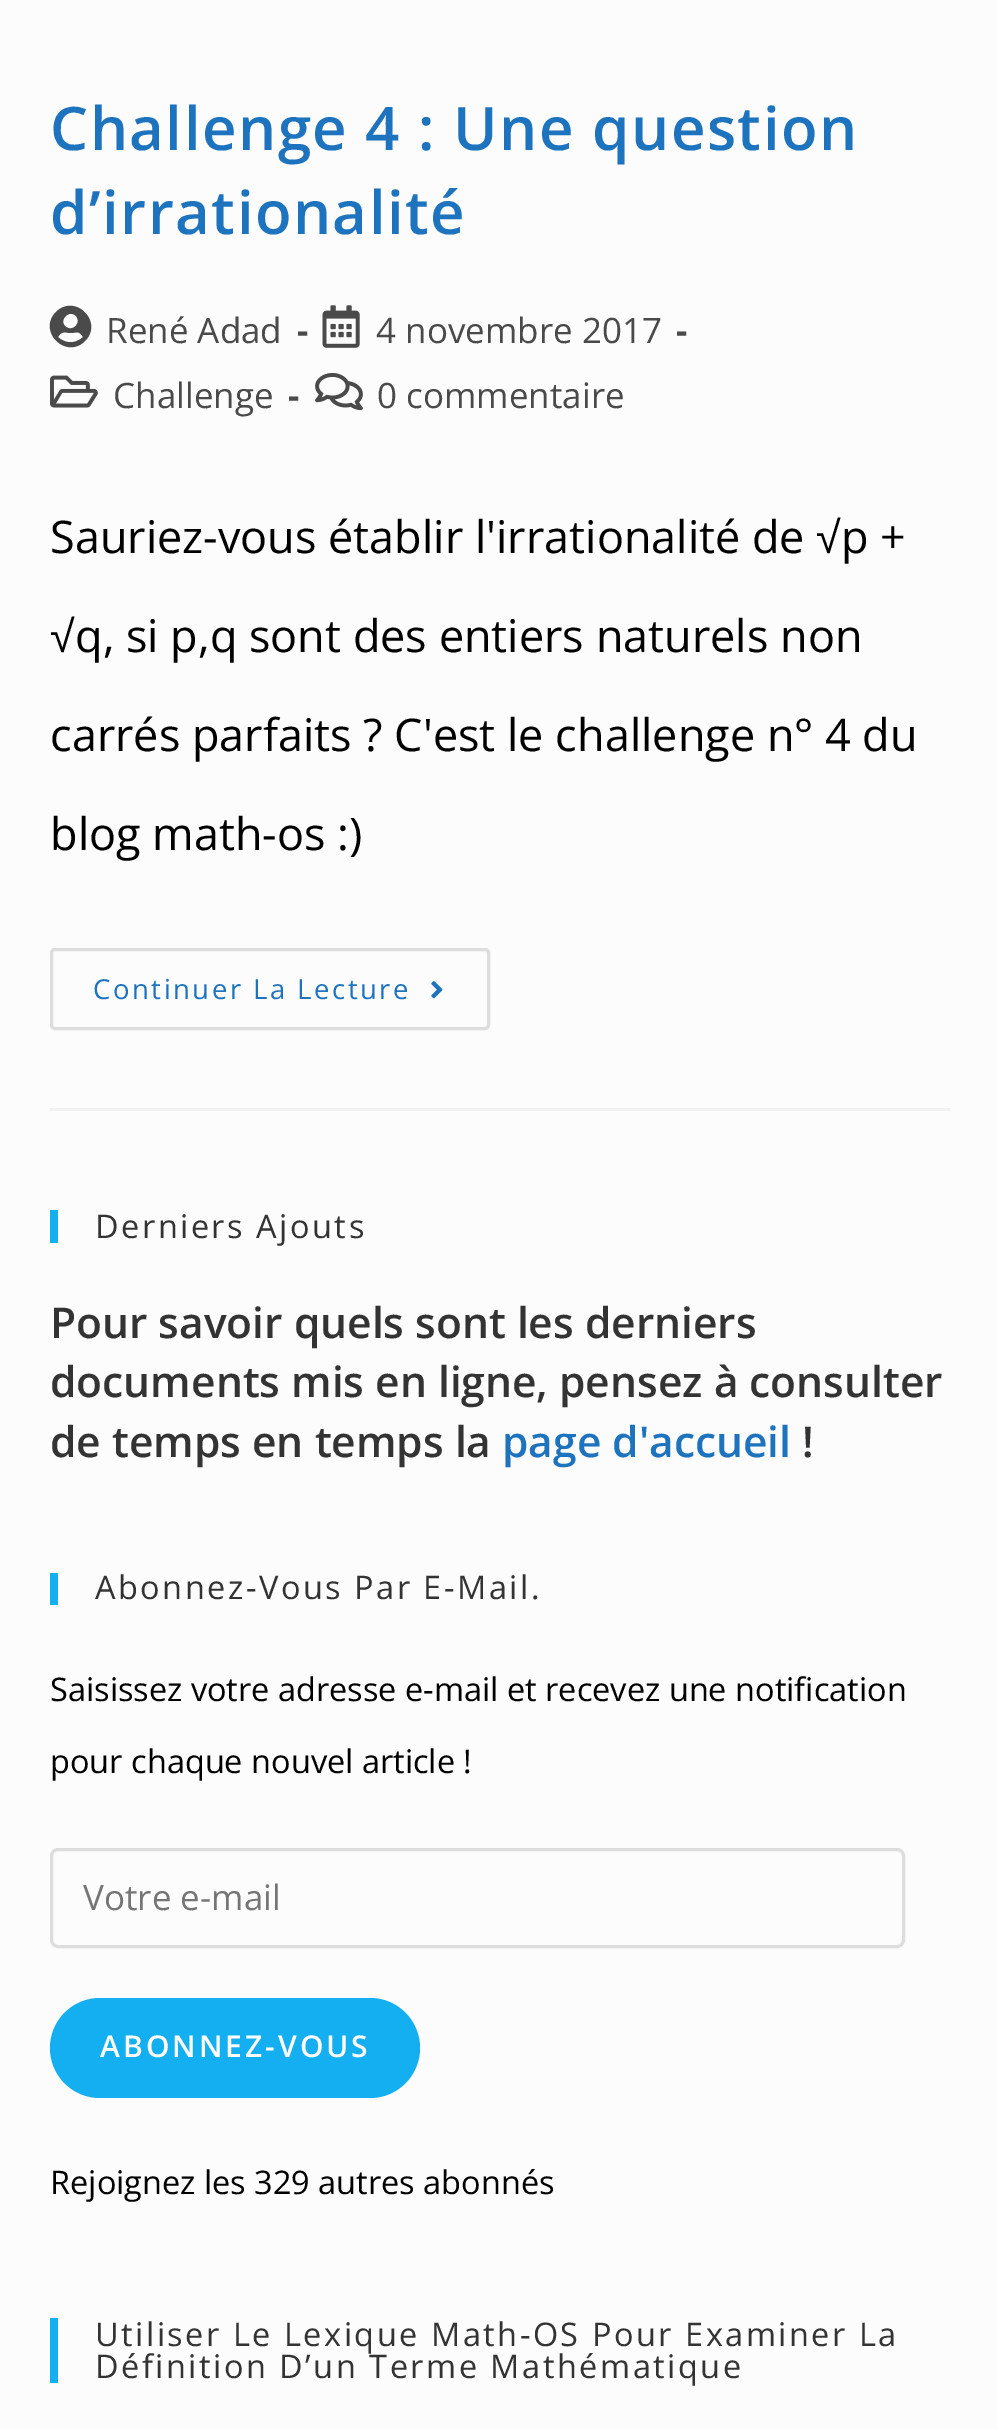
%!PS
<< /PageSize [998 2429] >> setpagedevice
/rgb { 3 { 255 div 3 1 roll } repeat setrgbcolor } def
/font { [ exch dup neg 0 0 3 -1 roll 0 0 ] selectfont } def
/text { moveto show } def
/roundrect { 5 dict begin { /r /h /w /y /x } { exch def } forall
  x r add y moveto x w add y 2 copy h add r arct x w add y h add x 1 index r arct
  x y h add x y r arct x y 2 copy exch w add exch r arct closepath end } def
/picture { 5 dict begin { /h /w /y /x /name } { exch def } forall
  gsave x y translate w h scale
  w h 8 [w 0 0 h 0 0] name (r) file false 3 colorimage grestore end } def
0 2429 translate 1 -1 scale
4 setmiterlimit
252 252 252 rgb
0 0 998 2429 rectfill
241 241 241 rgb
50 1108 900 3 rectfill
74 74 74 rgb
56 312 moveto 19 -19 48 10 29 29 rcurveto -19 19 -48 -10 -29 -29 rcurveto closepath 76 316 moveto -7 -7 -17 4 -11 10 rcurveto 7 7 17 -3 11 -10 rcurveto closepath 58 337 moveto 7 7 18 7 25 0 rcurveto -4 -7 -7 -4 -12 -4 rcurveto -5 0 -9 -3 -13 4 rcurveto closepath fill
(img_01.rgb) 322 305 38 43 picture
(img_02.rgb) 50 375 48 33 picture
(img_03.rgb) 315 373 48 38 picture
221 221 221 rgb
3 setlinewidth
51.5 949.5 437 79 3.5 roundrect stroke
(img_04.rgb) 431 981 12 18 picture
19 175 240 rgb
50 1210 8 33 rectfill
50 1573 8 32 rectfill
221 221 221 rgb
51.5 1849.5 852 97 6.5 roundrect stroke
19 175 240 rgb
50 1998 370 100 50 roundrect fill
50 2318 8 65 rectfill
/OpenSans-SemiBold 60 font
30 115 190 rgb
50 150 moveto 1.5 0 (Challenge 4 : Une question) ashow
50 234 moveto 1.5 0 (d’irrationalité) ashow
/OpenSans-Regular 35 font
74 74 74 rgb
(René Adad) 106 343 text
/OpenSans-Bold 35 font
(-) 297 343 text
/OpenSans-Regular 35 font
(4 novembre 2017) 376 343 text
/OpenSans-Bold 35 font
(-) 676 343 text
/OpenSans-Regular 35 font
(Challenge) 113 408 text
/OpenSans-Bold 35 font
(-) 288 408 text
/OpenSans-Regular 35 font
(0 commentaire) 377 408 text
/OpenSans-Regular 45 font
0 0 0 rgb
(Sauriez-vous établir l'irrationalité de) 50 553 text
/LiberationSans-Regular 45 font
(√) 816 553 text
/OpenSans-Regular 45 font
(p +) 841 553 text
/LiberationSans-Regular 45 font
(√) 50 652 text
/OpenSans-Regular 45 font
(q, si p,q sont des entiers naturels non) 75 652 text
(carrés parfaits ? C'est le challenge n° 4 du) 50 751 text
(blog math-os :\)) 50 850 text
/OpenSans-Regular 27.5 font
30 115 190 rgb
93 999 moveto 2.5 0 (Continuer La Lecture) ashow
/OpenSans-Regular 32.5 font
51 51 51 rgb
95 1238 moveto 2.5 0 (Derniers Ajouts) ashow
/OpenSans-SemiBold 42.5 font
(Pour savoir quels sont les derniers) 50 1338 text
(documents mis en ligne, pensez à consulter) 50 1397 text
(de temps en temps la) 50 1457 text
30 115 190 rgb
(page d'accueil) 502 1457 text
51 51 51 rgb
(!) 802 1457 text
/OpenSans-Regular 32.5 font
95 1599 moveto 2.5 0 (Abonnez-Vous Par E-Mail.) ashow
0 0 0 rgb
(Saisissez votre adresse e-mail et recevez une notification) 50 1701 text
(pour chaque nouvel article !) 50 1773 text
/OpenSans-Regular 35 font
117 117 117 rgb
(Votre e-mail) 83 1910 text
/OpenSans-SemiBold 30 font
255 255 255 rgb
100 2057 moveto 3 0 (ABONNEZ-VOUS) ashow
/OpenSans-Regular 32.5 font
0 0 0 rgb
(Rejoignez les 329 autres abonnés) 50 2194 text
51 51 51 rgb
95 2346 moveto 2.5 0 (Utiliser Le Lexique Math-OS Pour Examiner La) ashow
95 2378 moveto 2.5 0 (Définition D’un Terme Mathématique) ashow
showpage
